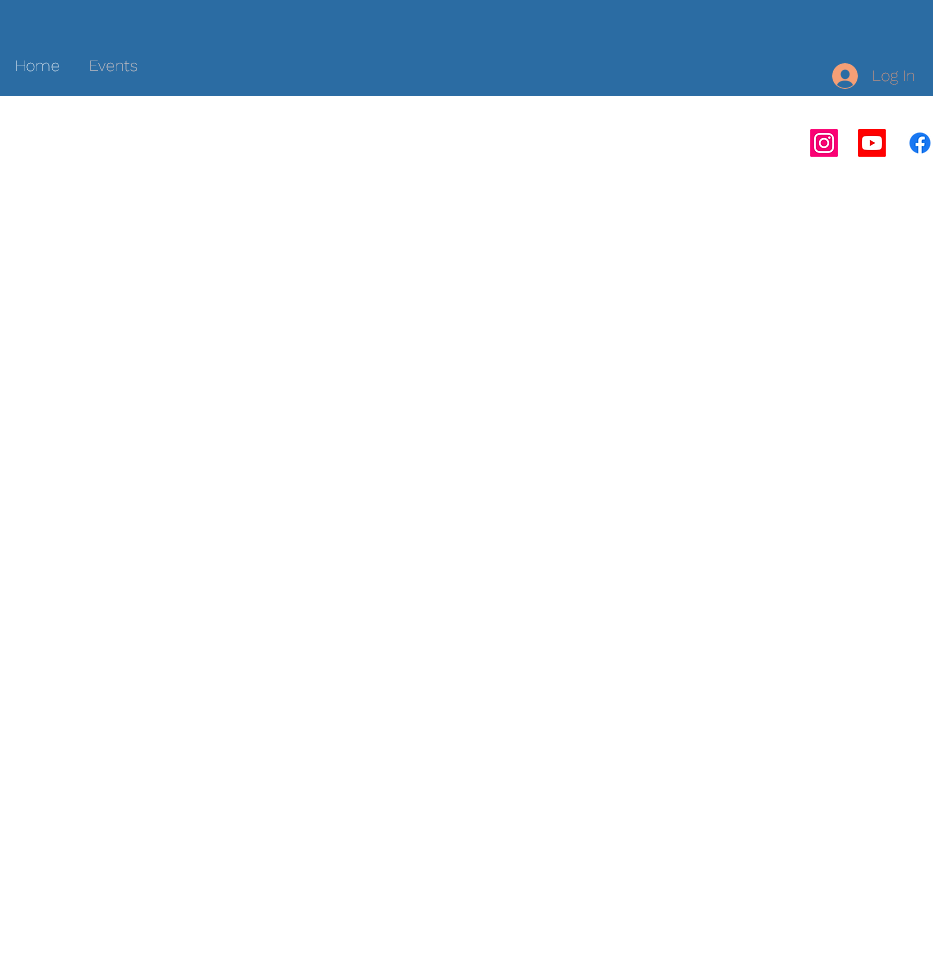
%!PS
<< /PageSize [933 975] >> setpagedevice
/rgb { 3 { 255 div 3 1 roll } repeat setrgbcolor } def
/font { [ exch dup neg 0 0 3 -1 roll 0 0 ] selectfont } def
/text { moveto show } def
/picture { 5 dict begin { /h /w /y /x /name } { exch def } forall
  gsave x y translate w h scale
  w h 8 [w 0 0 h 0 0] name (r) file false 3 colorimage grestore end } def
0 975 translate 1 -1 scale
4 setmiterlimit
255 255 255 rgb
0 0 933 975 rectfill
43 108 163 rgb
0 0 933 96 rectfill
(img_01.rgb) 832 63 26 26 picture
(img_02.rgb) 810 129 28 28 picture
(img_03.rgb) 858 129 28 28 picture
(img_04.rgb) 909 132 22 22 picture
/WorkSans-ExtraLight 16 font
255 255 255 rgb
(Home) 15 71 text
255 222 207 rgb
(Events) 89 71 text
245 159 118 rgb
(Log In) 872 81 text
showpage
